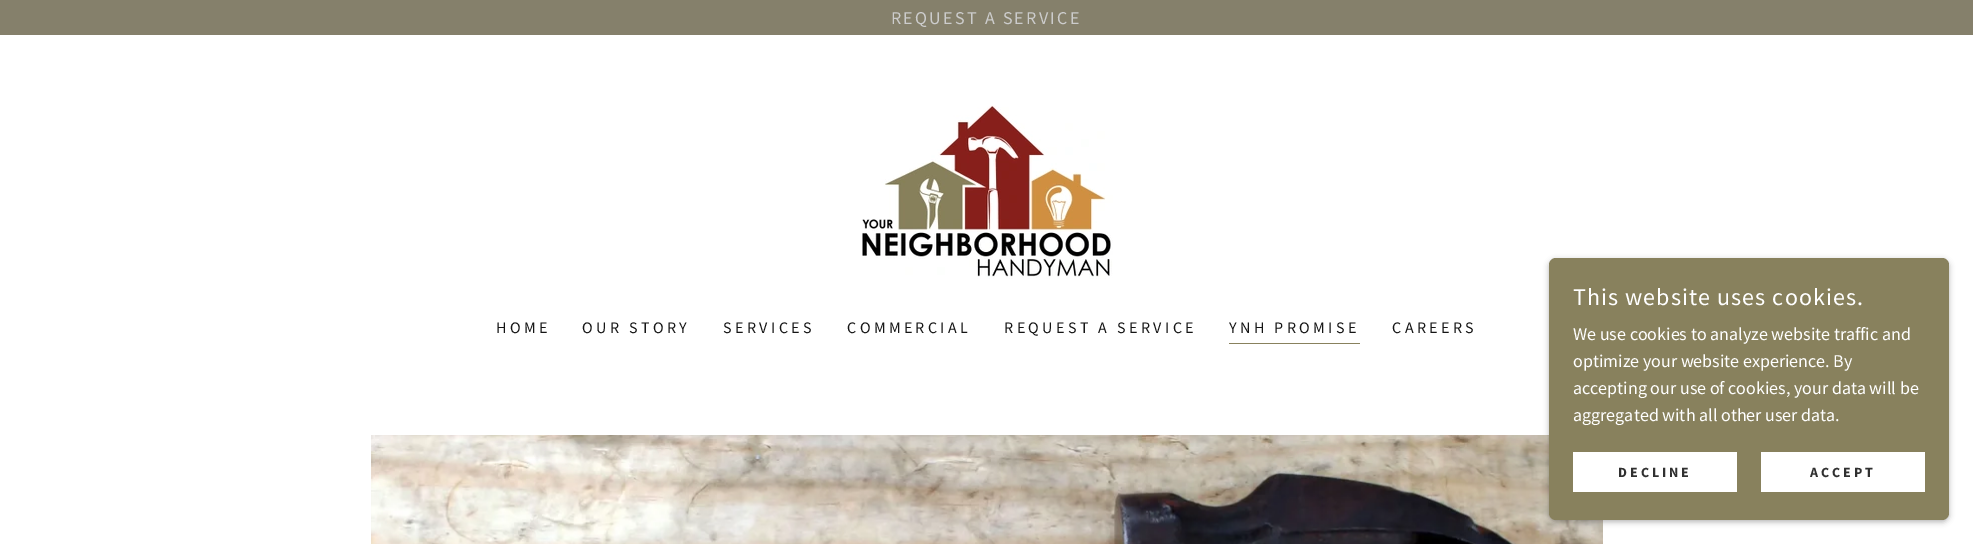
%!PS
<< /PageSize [1973 544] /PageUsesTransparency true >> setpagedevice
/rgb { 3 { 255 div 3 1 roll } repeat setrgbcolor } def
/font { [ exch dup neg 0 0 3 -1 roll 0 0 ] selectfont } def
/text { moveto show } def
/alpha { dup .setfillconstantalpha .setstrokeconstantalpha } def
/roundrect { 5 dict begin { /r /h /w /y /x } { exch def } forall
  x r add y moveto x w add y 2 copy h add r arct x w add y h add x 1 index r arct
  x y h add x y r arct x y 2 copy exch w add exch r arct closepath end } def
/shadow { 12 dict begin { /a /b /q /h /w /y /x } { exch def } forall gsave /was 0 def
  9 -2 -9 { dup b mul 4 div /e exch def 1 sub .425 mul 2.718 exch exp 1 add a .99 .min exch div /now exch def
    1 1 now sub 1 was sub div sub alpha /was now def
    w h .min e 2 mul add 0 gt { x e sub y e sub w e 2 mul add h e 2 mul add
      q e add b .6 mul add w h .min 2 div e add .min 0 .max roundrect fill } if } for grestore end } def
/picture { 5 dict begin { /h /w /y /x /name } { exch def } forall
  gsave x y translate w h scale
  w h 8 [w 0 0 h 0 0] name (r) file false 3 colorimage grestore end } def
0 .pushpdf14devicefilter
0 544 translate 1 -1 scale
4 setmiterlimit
255 255 255 rgb
0 0 1973 544 rectfill
133 128 107 rgb
0 0 1973 35 rectfill
(img_01.rgb) 862 105 251 174 picture
136 129 93 rgb
1229 343 131 1 rectfill
(img_02.rgb) 371 435 1232 109 picture
0 0 0 rgb
1549 260 400 262 7 3 0.3 shadow
136 129 93 rgb
1549 258 400 262 7 roundrect fill
255 255 255 rgb
1573 452 164 40 rectfill
1761 452 164 40 rectfill
/SourceSansPro-Regular 18 font
204 204 204 rgb
891 24 moveto 2.25 0 (REQUEST A SERVICE) ashow
/SourceSansPro-Regular 16 font
21 21 21 rgb
496 333 moveto 3.4 0 (HOME) ashow
582 333 moveto 3.4 0 (OUR STORY) ashow
723 333 moveto 3.4 0 (SERVICES) ashow
847 333 moveto 3.4 0 (COMMERCIAL) ashow
1004 333 moveto 3.4 0 (REQUEST A SERVICE) ashow
1229 333 moveto 3.4 0 (YNH PROMISE) ashow
1392 333 moveto 3.4 0 (CAREERS) ashow
/SourceSansPro-Regular 24 font
255 255 255 rgb
1573 305 moveto 1.1 0 (This website uses cookies.) ashow
/SourceSansPro-Regular 18 font
(We use cookies to analyze website traffic and) 1573 340 text
(optimize your website experience. By) 1573 367 text
(accepting our use of cookies, your data will be) 1573 394 text
(aggregated with all other user data.) 1573 421 text
/SourceSansPro-Bold 14 font
48 48 48 rgb
1618 477 moveto 3 0 (DECLINE) ashow
1810 477 moveto 3 0 (ACCEPT) ashow
.poppdf14devicefilter showpage
